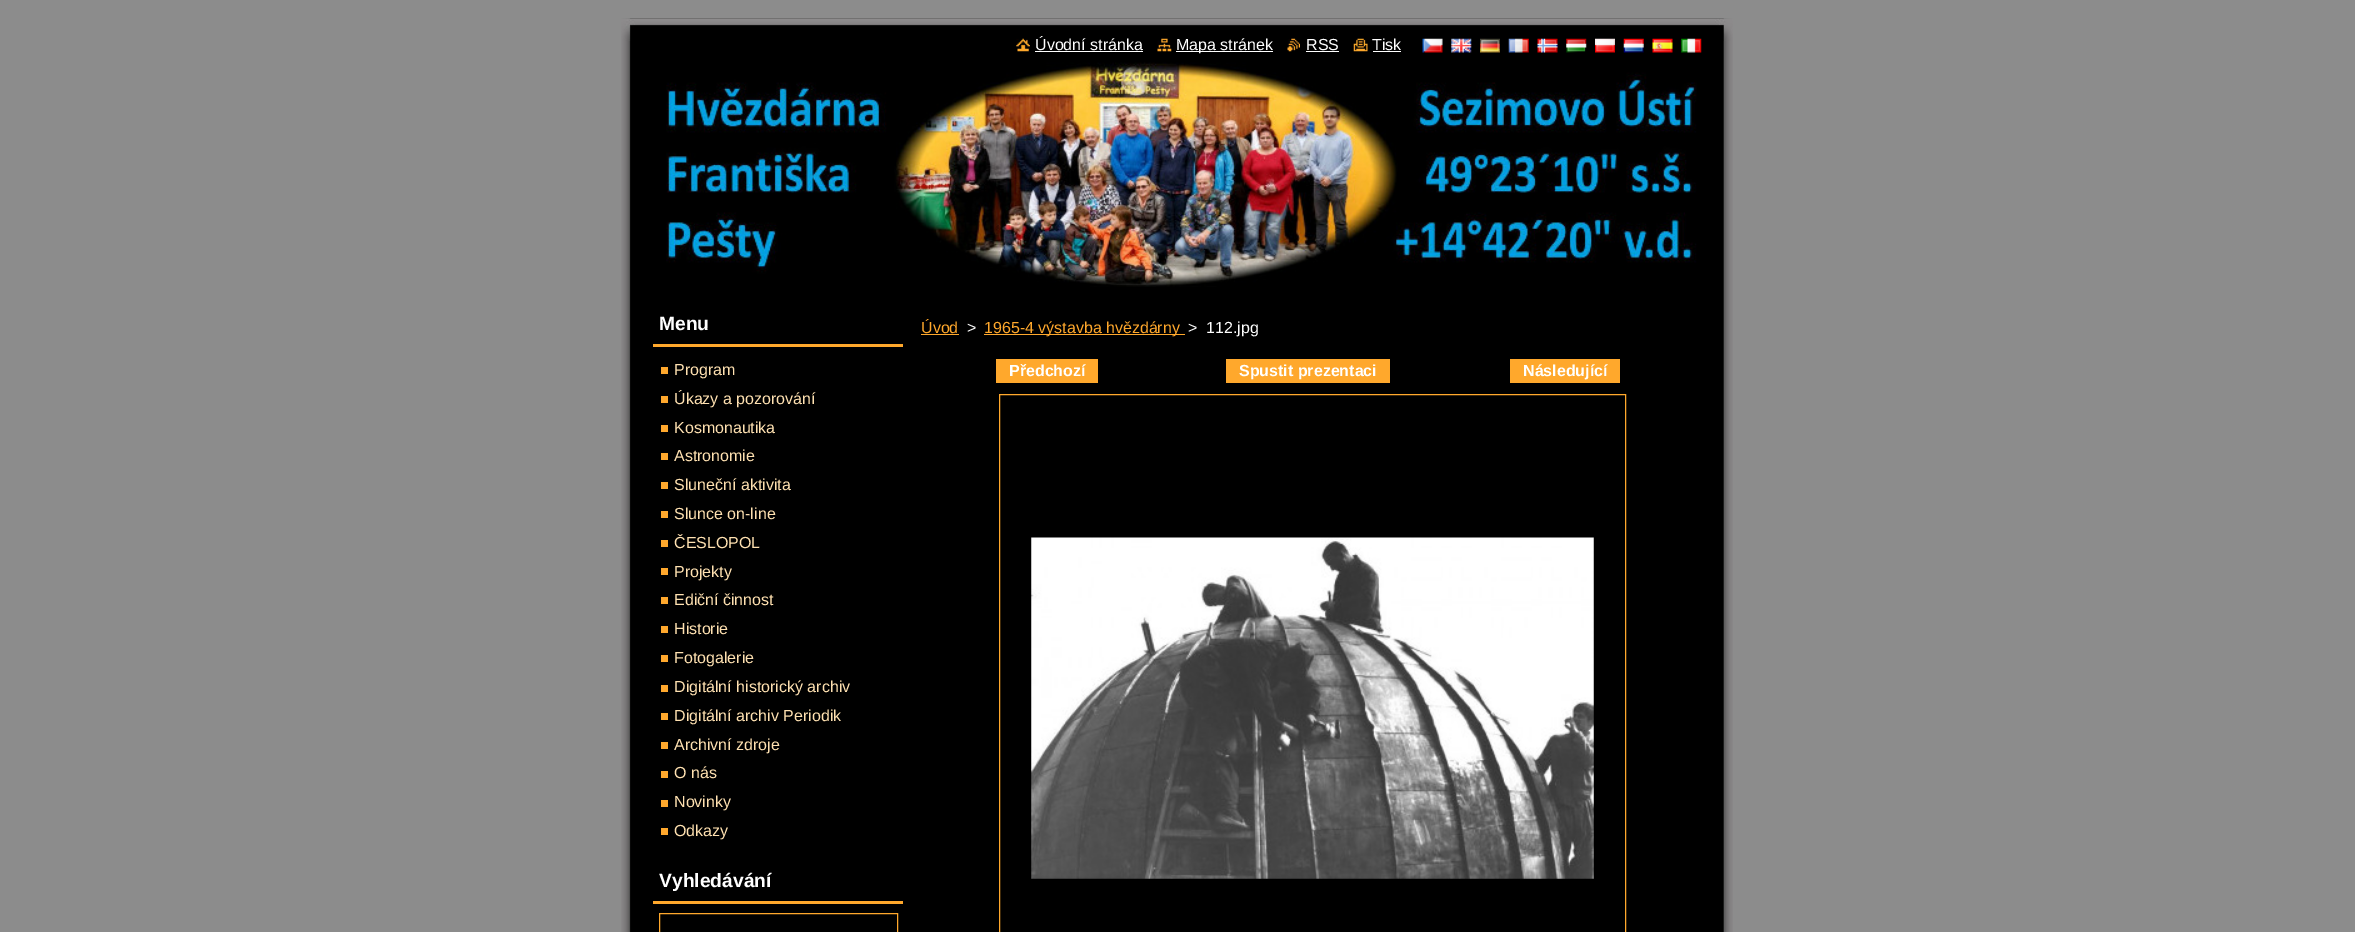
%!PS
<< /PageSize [2355 932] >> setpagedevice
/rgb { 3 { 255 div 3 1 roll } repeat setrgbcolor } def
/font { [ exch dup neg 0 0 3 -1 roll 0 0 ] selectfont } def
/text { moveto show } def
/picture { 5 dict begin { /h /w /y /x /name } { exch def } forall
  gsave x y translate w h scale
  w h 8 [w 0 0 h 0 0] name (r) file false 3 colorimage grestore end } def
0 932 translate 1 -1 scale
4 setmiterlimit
140 140 140 rgb
0 0 2355 932 rectfill
(img_01.rgb) 621 18 1112 895 picture
(img_02.rgb) 621 18 1112 23 picture
(img_03.rgb) 621 913 1112 19 picture
(img_04.rgb) 1016 38 14 14 picture
255 255 255 rgb
1035 51 108 1 rectfill
(img_05.rgb) 1157 38 15 14 picture
1176 51 97 1 rectfill
(img_06.rgb) 1287 38 13 14 picture
1306 51 33 1 rectfill
(img_07.rgb) 1353 38 15 14 picture
1373 51 28 1 rectfill
(img_08.rgb) 1422 38 21 15 picture
(img_09.rgb) 1451 38 21 15 picture
(img_10.rgb) 1480 38 20 15 picture
(img_11.rgb) 1508 38 21 15 picture
(img_12.rgb) 1537 38 21 15 picture
(img_13.rgb) 1566 38 21 15 picture
(img_14.rgb) 1595 38 20 15 picture
(img_15.rgb) 1623 38 21 15 picture
(img_16.rgb) 1652 38 21 15 picture
(img_17.rgb) 1681 38 21 15 picture
(img_18.rgb) 666 62 1031 225 picture
255 168 44 rgb
653 344 250 3 rectfill
255 168 45 rgb
661 367 7 7 rectfill
661 396 7 7 rectfill
661 425 7 7 rectfill
661 453 7 7 rectfill
661 482 7 7 rectfill
661 511 7 7 rectfill
661 540 7 7 rectfill
661 568 7 7 rectfill
661 597 7 7 rectfill
661 626 7 7 rectfill
661 655 7 7 rectfill
661 685 7 7 rectfill
661 713 7 7 rectfill
661 742 7 7 rectfill
661 771 7 7 rectfill
661 800 7 7 rectfill
661 828 7 7 rectfill
255 168 44 rgb
653 901 250 3 rectfill
659.5 913.5 238 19 rectstroke
921 334 38 1 rectfill
984 334 201 1 rectfill
996 359 102 24 rectfill
1226 359 164 24 rectfill
1510 359 110 24 rectfill
999.5 394.5 626 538 rectstroke
(img_19.rgb) 1031 537 563 342 picture
/LiberationSans-Regular 16 font
255 255 255 rgb
(Úvodní stránka) 1035 50 text
(Mapa stránek) 1176 50 text
(RSS) 1306 50 text
(Tisk) 1372 50 text
/LiberationSans-Bold 19.25 font
(Menu) 659 330 text
/LiberationSans-Regular 16 font
255 225 177 rgb
(Program) 674 375 text
(Úkazy a pozorování) 674 404 text
(Kosmonautika) 674 433 text
(Astronomie) 674 461 text
(Sluneční aktivita) 674 490 text
(Slunce on-line) 674 519 text
(ČESLOPOL) 674 548 text
(Projekty) 674 577 text
(Ediční činnost) 674 605 text
(Historie) 674 634 text
(Fotogalerie) 674 663 text
(Digitální historický archiv) 674 692 text
(Digitální archiv Periodik) 674 721 text
(Archivní zdroje) 674 750 text
(O nás) 674 778 text
(Novinky) 674 807 text
(Odkazy) 674 836 text
/LiberationSans-Bold 19.25 font
255 255 255 rgb
(Vyhledávání) 659 887 text
/LiberationSans-Regular 16 font
255 168 44 rgb
(Úvod) 921 333 text
255 255 255 rgb
(>) 967 333 text
255 168 44 rgb
(1965-4 výstavba hvězdárny) 984 333 text
255 255 255 rgb
(>) 1188 333 text
(112.jpg) 1206 333 text
/LiberationSans-Bold 16 font
(Předchozí) 1009 376 text
(Spustit prezentaci) 1239 376 text
(Následující) 1523 376 text
showpage
